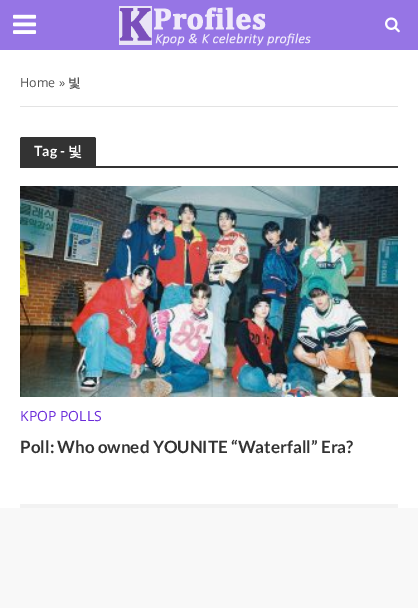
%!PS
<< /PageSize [418 608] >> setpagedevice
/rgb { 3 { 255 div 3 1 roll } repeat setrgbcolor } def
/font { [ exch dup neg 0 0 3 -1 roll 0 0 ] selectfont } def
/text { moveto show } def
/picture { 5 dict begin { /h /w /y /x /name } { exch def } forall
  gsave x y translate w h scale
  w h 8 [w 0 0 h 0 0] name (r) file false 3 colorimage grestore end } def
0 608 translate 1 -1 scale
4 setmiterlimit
255 255 255 rgb
0 0 418 608 rectfill
248 248 248 rgb
0 508 418 100 rectfill
150 117 229 rgb
0 0 418 50 rectfill
(img_01.rgb) 13 14 24 20 picture
(img_02.rgb) 119 6 192 40 picture
(img_03.rgb) 385 17 15 16 picture
227 227 227 rgb
20 106 378 1 rectfill
51 51 51 rgb
22 137 moveto 72 0 rlineto 1 0 2 1 2 2 rcurveto 0 27 rlineto -76 0 rlineto 0 -27 rlineto 0 -1 1 -2 2 -2 rcurveto closepath fill
20 166 378 2 rectfill
(img_04.rgb) 20 186 378 211 picture
242 242 242 rgb
20 504 378 4 rectfill
/OpenSans-Regular 12.5 font
82 82 82 rgb
(Home ») 20 87 text
/WenQuanYiZenHei-Bold 12.5 font
(빛) 68 87 text
/Lato-Bold 14 font
255 255 255 rgb
(Tag -) 34 156 text
/WenQuanYiZenHei-Bold 14 font
(빛) 68 156 text
/OpenSans-Regular 14 font
107 43 218 rgb
(KPOP POLLS) 20 421 text
/Lato-Bold 17 font
51 51 51 rgb
(Poll: Who owned YOUNITE “Waterfall” Era?) 20 453 text
showpage
